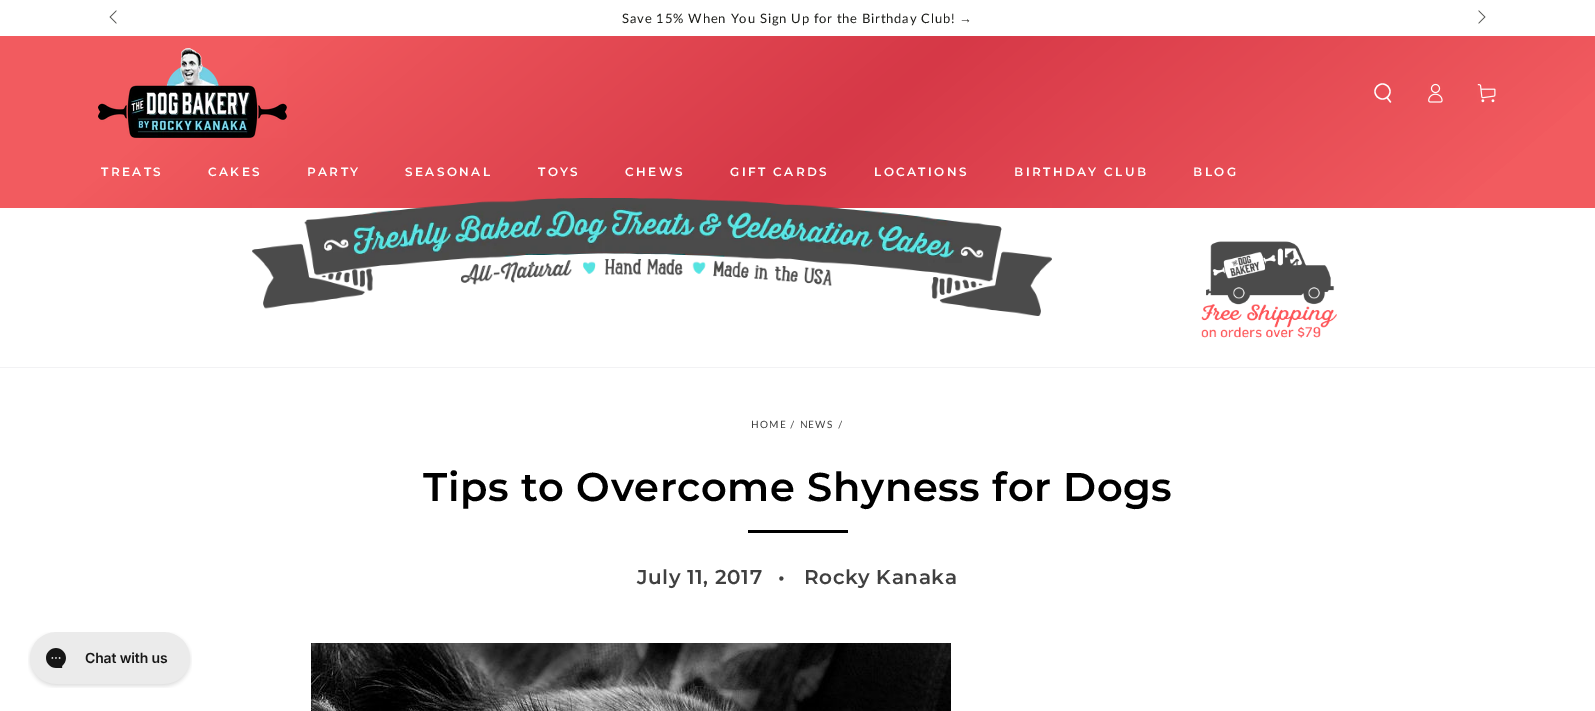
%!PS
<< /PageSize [1595 711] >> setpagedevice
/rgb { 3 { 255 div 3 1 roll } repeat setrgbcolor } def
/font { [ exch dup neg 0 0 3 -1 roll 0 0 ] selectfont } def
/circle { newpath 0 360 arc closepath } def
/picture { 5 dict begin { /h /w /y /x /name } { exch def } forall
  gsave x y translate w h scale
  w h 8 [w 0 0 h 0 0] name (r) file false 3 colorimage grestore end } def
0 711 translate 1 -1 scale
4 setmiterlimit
255 255 255 rgb
0 0 1595 711 rectfill
(img_01.rgb) 109 10 8 14 picture
(img_02.rgb) 1478 10 8 14 picture
242 242 244 rgb
0 367 1595 1 rectfill
gsave 0 36 moveto 1595 0 rlineto 0 172 rlineto -1595 0 rlineto closepath clip newpath
<< /ShadingType 2 /ColorSpace /DeviceRGB /Coords [1209 691 386 -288] /Extend [true true] /Function << /FunctionType 3 /Domain [0 1] /Functions [<< /FunctionType 2 /Domain [0 1] /C0 [0.949 0.357 0.373] /C1 [0.949 0.357 0.373] /N 1 >> << /FunctionType 2 /Domain [0 1] /C0 [0.949 0.357 0.373] /C1 [0.839 0.22 0.278] /N 1 >> << /FunctionType 2 /Domain [0 1] /C0 [0.839 0.22 0.278] /C1 [0.949 0.357 0.373] /N 1 >> << /FunctionType 2 /Domain [0 1] /C0 [0.949 0.357 0.373] /C1 [0.949 0.357 0.373] /N 1 >>] /Bounds [0.16 0.52 0.87] /Encode [0 1 0 1 0 1 0 1] >> >> shfill grestore
(img_03.rgb) 98 48 189 90 picture
255 255 255 rgb
1.3 setlinewidth
1382.5 91.5 7.5 circle stroke
1 setlinecap
1387 97.5 moveto 3.5 4.5 rlineto stroke
(img_04.rgb) 1428 83 15 20 picture
(img_05.rgb) 1477 84 19 19 picture
(img_06.rgb) 252 198 800 118 picture
(img_07.rgb) 1201 241 136 97 picture
0 0 0 rgb
748 530 100 3 rectfill
(img_08.rgb) 311 643 640 68 picture
(img_09.rgb) 28 632 164 56 picture
/Lato-Regular 13 font
26 27 24 rgb
622 23 moveto 0.8 0 (Save 15% When You Sign Up for the Birthday Club!) ashow
/LiberationSans-Regular 13 font
959 23 moveto 0.8 0 (→) ashow
/Montserrat-SemiBold 12 font
255 255 255 rgb
101 176 moveto 2.4 0 (TREATS) ashow
208 176 moveto 2.4 0 (CAKES) ashow
307 176 moveto 2.4 0 (PARTY) ashow
405 176 moveto 2.4 0 (SEASONAL) ashow
538 176 moveto 2.4 0 (TOYS) ashow
625 176 moveto 2.4 0 (CHEWS) ashow
730 176 moveto 2.4 0 (GIFT CARDS) ashow
874 176 moveto 2.4 0 (LOCATIONS) ashow
1014 176 moveto 2.4 0 (BIRTHDAY CLUB) ashow
1193 176 moveto 2.4 0 (BLOG) ashow
/Lato-Regular 10 font
64 64 64 rgb
751 428 moveto 1.25 0 (HOME) ashow
790 428 moveto 1.25 0 (/ NEWS) ashow
838 428 moveto 1.25 0 (/) ashow
/Montserrat-SemiBold 40 font
0 0 0 rgb
423 501 moveto 0.6 0 (Tips to Overcome Shyness for Dogs) ashow
/Montserrat-SemiBold 20 font
64 64 64 rgb
637 584 moveto 0.6 0 (July 11, 2017) ashow
778 584 moveto 0.6 0 (•) ashow
804 584 moveto 0.6 0 (Rocky Kanaka) ashow
showpage
